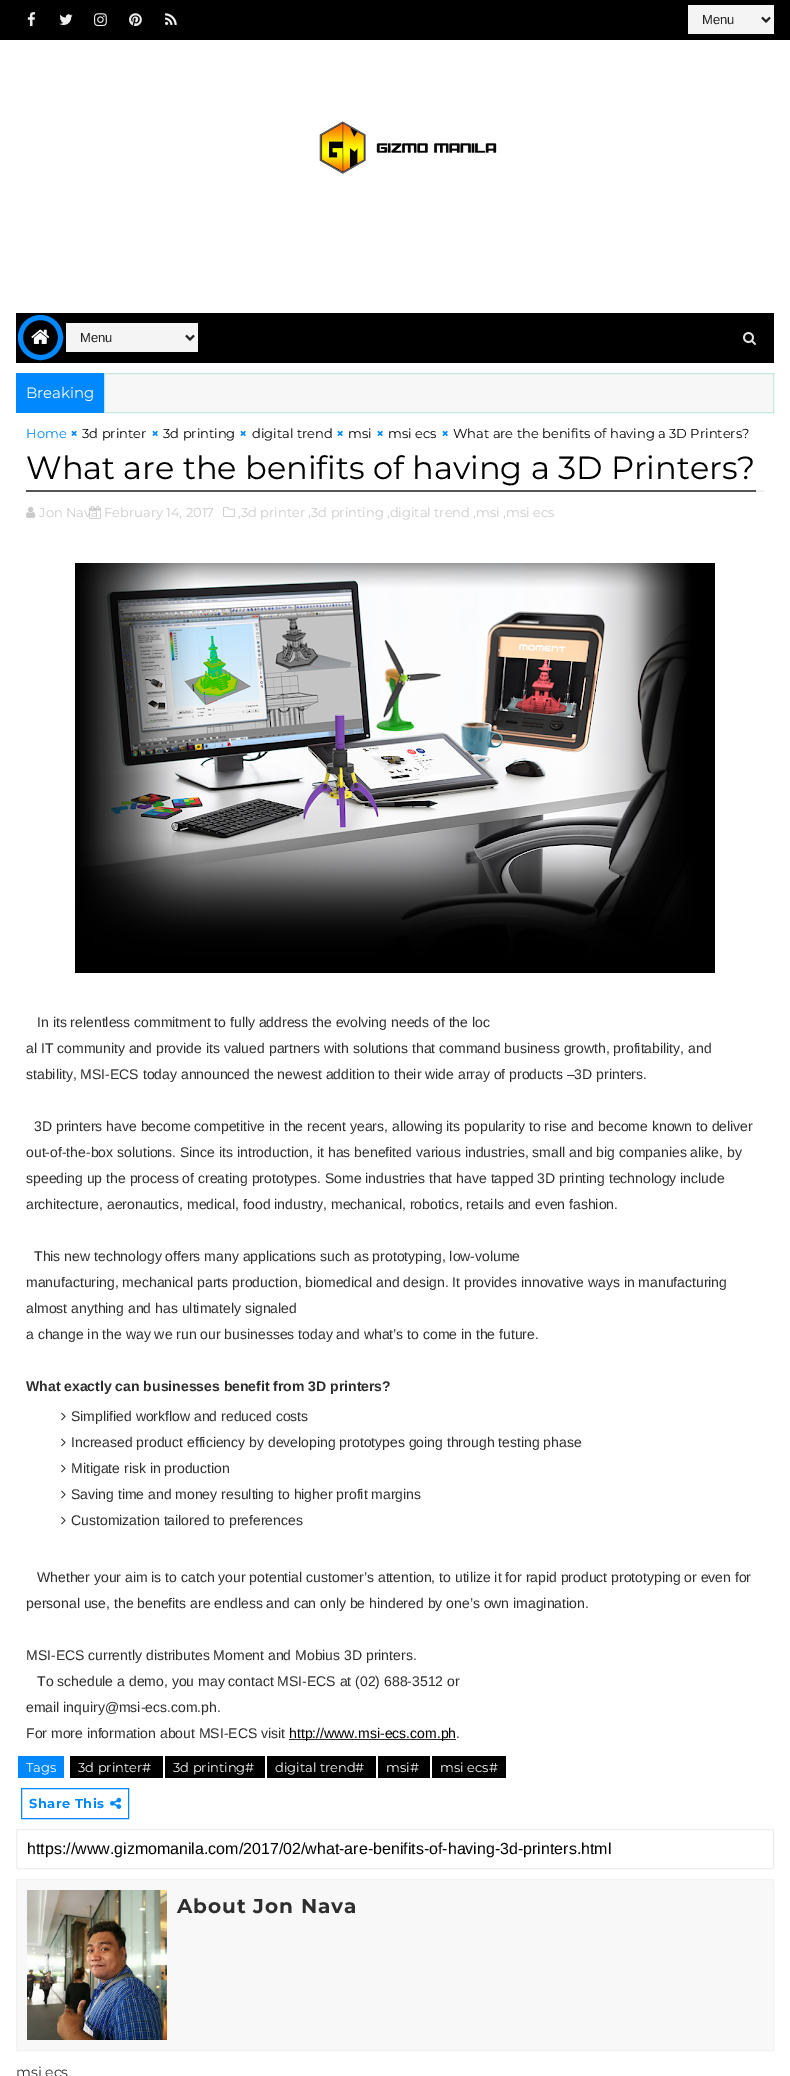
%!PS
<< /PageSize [790 2076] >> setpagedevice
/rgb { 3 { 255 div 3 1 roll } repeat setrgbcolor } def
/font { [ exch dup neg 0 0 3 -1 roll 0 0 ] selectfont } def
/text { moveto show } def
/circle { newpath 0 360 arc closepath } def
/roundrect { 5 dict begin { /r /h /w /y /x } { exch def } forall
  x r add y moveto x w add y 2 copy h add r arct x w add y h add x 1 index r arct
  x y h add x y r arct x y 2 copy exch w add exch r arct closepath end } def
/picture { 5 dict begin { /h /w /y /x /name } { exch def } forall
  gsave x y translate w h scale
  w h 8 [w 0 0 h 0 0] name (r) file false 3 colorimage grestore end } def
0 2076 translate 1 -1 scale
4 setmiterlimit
255 255 255 rgb
0 0 790 2076 rectfill
0 0 0 rgb
0 0 790 40 rectfill
(img_01.rgb) 27 12 9 15 picture
(img_02.rgb) 59 14 14 11 picture
(img_03.rgb) 94 13 13 14 picture
(img_04.rgb) 129 13 13 14 picture
(img_05.rgb) 165 13 12 12 picture
244 244 244 rgb
688 5 86 29 rectfill
34 34 34 rgb
2 setlinewidth
762 17.5 moveto 4 4 rlineto 4 -4 rlineto stroke
(img_06.rgb) 319 121 178 53 picture
0 0 0 rgb
16 313 758 50 rectfill
0 136 255 rgb
5 setlinewidth
40.5 337.5 20 circle stroke
(img_07.rgb) 31 329 19 15 picture
244 244 244 rgb
66 323 132 29 rectfill
34 34 34 rgb
2 setlinewidth
186 335.5 moveto 4 4 rlineto 4 -4 rlineto stroke
(img_08.rgb) 743 332 13 13 picture
0 136 255 rgb
16 373 88 40 rectfill
247 247 247 rgb
104.5 373.5 moveto 669 0 rlineto 0 39 rlineto -669 0 rlineto closepath gsave fill grestore
196 233 218 rgb
1 setlinewidth
stroke
(img_09.rgb) 71 430 6 6 picture
(img_09.rgb) 152 430 6 6 picture
(img_09.rgb) 240 430 6 6 picture
(img_09.rgb) 337 430 6 6 picture
(img_09.rgb) 377 430 6 6 picture
(img_09.rgb) 442 430 6 6 picture
238 238 238 rgb
756 490 8 2 rectfill
85 85 85 rgb
26 490 730 2 rectfill
(img_10.rgb) 26 506 10 12 picture
(img_12.rgb) 223 506 12 11 picture
(img_13.rgb) 75 563 640 410 picture
(img_14.rgb) 61 1412 5 9 picture
(img_14.rgb) 61 1438 5 9 picture
(img_14.rgb) 61 1464 5 9 picture
(img_14.rgb) 61 1490 5 9 picture
(img_14.rgb) 61 1516 5 9 picture
46 46 46 rgb
289 1739 167 1 rectfill
0 136 255 rgb
18 1756 46 22 rectfill
0 0 0 rgb
70 1756 93 22 rectfill
165 1756 100 22 rectfill
267 1756 109 22 rectfill
378 1756 52 22 rectfill
432 1756 74 22 rectfill
0 136 255 rgb
21.5 1788.5 107 30 rectstroke
(img_15.rgb) 110 1797 12 12 picture
238 238 238 rgb
16.5 1829.5 757 39 1.5 roundrect stroke
248 248 248 rgb
16.5 1879.5 moveto 757 0 rlineto 0 171 rlineto -757 0 rlineto closepath gsave fill grestore
242 242 242 rgb
stroke
(img_16.rgb) 27 1890 140 150 picture
/LiberationSans-Regular 13 font
34 34 34 rgb
(Menu) 702 24 text
(Menu) 80 342 text
/Montserrat-Regular 15 font
255 255 255 rgb
(Breaking) 26 398 text
/Montserrat-Regular 13 font
0 136 255 rgb
(Home) 26 438 text
0 0 0 rgb
(3d printer) 82 438 text
(3d printing) 163 438 text
(digital trend) 252 438 text
(msi) 348 438 text
(msi ecs) 388 438 text
(What are the benifits of having a 3D Printers?) 453 438 text
/Montserrat-Regular 32 font
(What are the benifits of having a 3D Printers?) 26 479 text
/Montserrat-Regular 13 font
203 203 203 rgb
(Jon Nava) 39 517 text
(img_11.rgb) 89 505 12 14 picture
(February 14, 2017) 104 517 text
(,3d printer ,3d printing ,digital trend ,msi ,msi ecs) 238 517 text
/LiberationSans-Regular 14 font
46 46 46 rgb
(In its relentless commitment to fully address the evolving needs of the loc) 37 1027 text
(al IT community and provide its valued partners with solutions that command business growth, profitability, and) 26 1053 text
(stability, MSI-ECS today announced the newest addition to their wide array of products –3D printers.) 26 1079 text
(3D printers have become competitive in the recent years, allowing its popularity to rise and become known to deliver) 34 1131 text
(out-of-the-box solutions. Since its introduction, it has benefited various industries, small and big companies alike, by) 26 1157 text
(speeding up the process of creating prototypes. Some industries that have tapped 3D printing technology include) 26 1183 text
(architecture, aeronautics, medical, food industry, mechanical, robotics, retails and even fashion.) 26 1209 text
(This new technology offers many applications such as prototyping, low-volume) 34 1261 text
(manufacturing, mechanical parts production, biomedical and design. It provides innovative ways in manufacturing) 26 1287 text
(almost anything and has ultimately signaled) 26 1313 text
(a change in the way we run our businesses today and what’s to come in the future.) 26 1339 text
/LiberationSans-Bold 14 font
(What exactly can businesses benefit from 3D printers?) 26 1391 text
/LiberationSans-Regular 14 font
(Simplified workflow and reduced costs) 71 1421 text
(Increased product efficiency by developing prototypes going through testing phase) 71 1447 text
(Mitigate risk in production) 71 1473 text
(Saving time and money resulting to higher profit margins) 71 1499 text
(Customization tailored to preferences) 71 1525 text
(Whether your aim is to catch your potential customer’s attention, to utilize it for rapid product prototyping or even for) 37 1582 text
(personal use, the benefits are endless and can only be hindered by one’s own imagination.) 26 1608 text
(MSI-ECS currently distributes Moment and Mobius 3D printers.) 26 1660 text
(To schedule a demo, you may contact MSI-ECS at \(02\) 688-3512 or) 37 1686 text
(email inquiry@msi-ecs.com.ph.) 26 1712 text
(For more information about MSI-ECS visit) 26 1738 text
0 0 0 rgb
(http://www.msi-ecs.com.ph) 289 1738 text
46 46 46 rgb
(.) 456 1738 text
/Montserrat-Regular 13 font
255 255 255 rgb
(Tags) 26 1772 text
(3d printer#) 78 1772 text
(3d printing#) 173 1772 text
(digital trend#) 275 1772 text
(msi#) 386 1772 text
(msi ecs#) 440 1772 text
/Montserrat-Bold 13 font
0 136 255 rgb
29 1808 moveto 0.5 0 (Share This) ashow
/LiberationSans-Regular 16 font
0 0 0 rgb
(https://www.gizmomanila.com/2017/02/what-are-benifits-of-having-3d-printers.html) 27 1854 text
/Montserrat-Bold 20 font
46 46 46 rgb
177 1913 moveto 1 0 (About Jon Nava) ashow
/Montserrat-Regular 14 font
(msi ecs) 16 2077 text
showpage
